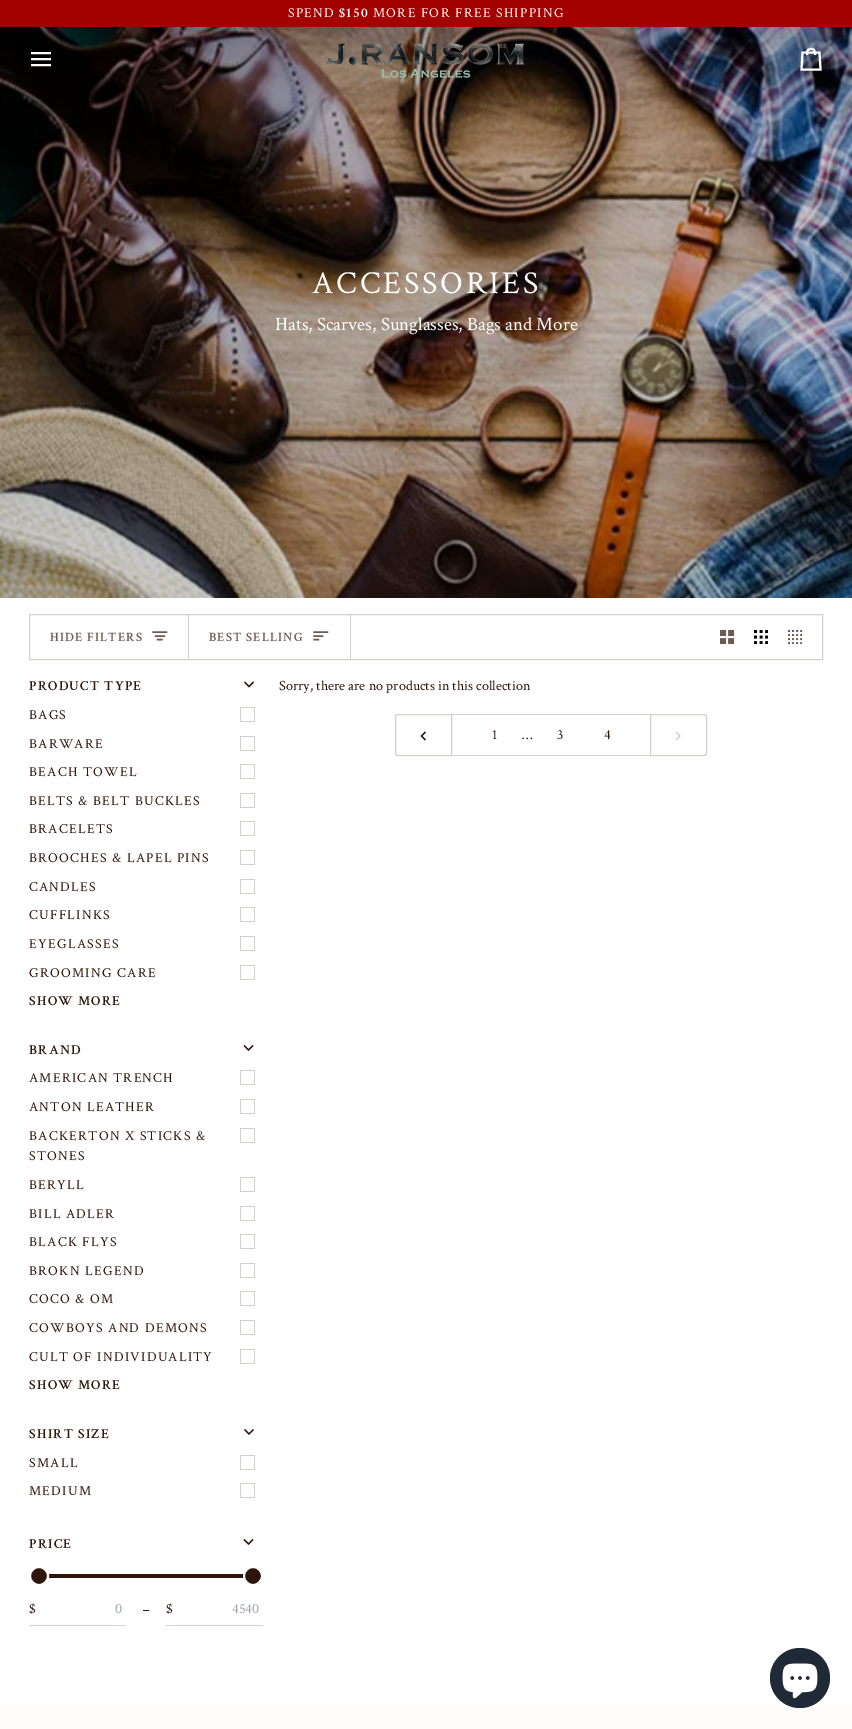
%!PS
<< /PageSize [852 1729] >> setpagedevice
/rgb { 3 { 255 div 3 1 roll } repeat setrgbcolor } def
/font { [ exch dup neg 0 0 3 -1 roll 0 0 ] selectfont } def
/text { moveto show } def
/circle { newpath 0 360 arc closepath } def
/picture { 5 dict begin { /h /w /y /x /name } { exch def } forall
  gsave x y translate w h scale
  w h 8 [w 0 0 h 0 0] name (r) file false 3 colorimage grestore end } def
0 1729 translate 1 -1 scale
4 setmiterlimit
255 255 255 rgb
0 0 852 1729 rectfill
164 0 0 rgb
0 0 852 27 rectfill
(img_02.rgb) 0 27 852 571 picture
255 255 255 rgb
2 setlinewidth
2 setlinecap
50 53 moveto -18 0 rlineto 50 59 moveto -18 0 rlineto 50 65 moveto -18 0 rlineto stroke
(img_01.rgb) 326 43 198 35 picture
0 setlinecap
815 55 moveto 0 -2.5 rlineto 4.5 0 rlineto 1 17 rlineto -19 0 rlineto 1 -17 rlineto 4.5 0 rlineto 0 -5 8 -5 8 0 rcurveto -8 0 rlineto 0 2.5 rlineto stroke
213 208 206 rgb
1 setlinewidth
29.5 614.5 793 45 rectstroke
188 615 1 44 rectfill
108 91 82 rgb
1.5 setlinewidth
2 setlinecap
166.5 632 moveto -13.5 0 rlineto 164.5 636 moveto -9 0 rlineto 162 639.5 moveto -4.5 0 rlineto stroke
213 208 206 rgb
350 615 1 44 rectfill
108 91 82 rgb
327.5 632 moveto -13.5 0 rlineto 322.5 636 moveto -8.5 0 rlineto 318.5 639.5 moveto -4.5 0 rlineto stroke
(img_03.rgb) 720 630 14 14 picture
(img_04.rgb) 754 630 14 14 picture
(img_05.rgb) 788 630 14 14 picture
45 21 8 rgb
1.3 setlinewidth
245 682.5 moveto 4 4 rlineto 4 -4 rlineto stroke
213 208 206 rgb
0.8 setlinewidth
0 setlinecap
240.5 707.5 moveto 14 0 rlineto 0 14 rlineto -14 0 rlineto closepath stroke
240.5 736.5 moveto 14 0 rlineto 0 14 rlineto -14 0 rlineto closepath stroke
240.5 764.5 moveto 14 0 rlineto 0 14 rlineto -14 0 rlineto closepath stroke
240.5 793.5 moveto 14 0 rlineto 0 14 rlineto -14 0 rlineto closepath stroke
240.5 821.5 moveto 14 0 rlineto 0 14 rlineto -14 0 rlineto closepath stroke
240.5 850.5 moveto 14 0 rlineto 0 14 rlineto -14 0 rlineto closepath stroke
240.5 879.5 moveto 14 0 rlineto 0 14 rlineto -14 0 rlineto closepath stroke
240.5 907.5 moveto 14 0 rlineto 0 14 rlineto -14 0 rlineto closepath stroke
240.5 936.5 moveto 14 0 rlineto 0 14 rlineto -14 0 rlineto closepath stroke
240.5 965.5 moveto 14 0 rlineto 0 14 rlineto -14 0 rlineto closepath stroke
45 21 8 rgb
1.3 setlinewidth
2 setlinecap
244.5 1046 moveto 4 4 rlineto 4 -4 rlineto stroke
213 208 206 rgb
0.8 setlinewidth
0 setlinecap
240.5 1070.5 moveto 14 0 rlineto 0 14 rlineto -14 0 rlineto closepath stroke
240.5 1099.5 moveto 14 0 rlineto 0 14 rlineto -14 0 rlineto closepath stroke
240.5 1128.5 moveto 14 0 rlineto 0 14 rlineto -14 0 rlineto closepath stroke
240.5 1177.5 moveto 14 0 rlineto 0 14 rlineto -14 0 rlineto closepath stroke
240.5 1206.5 moveto 14 0 rlineto 0 14 rlineto -14 0 rlineto closepath stroke
240.5 1234.5 moveto 14 0 rlineto 0 14 rlineto -14 0 rlineto closepath stroke
240.5 1263.5 moveto 14 0 rlineto 0 14 rlineto -14 0 rlineto closepath stroke
240.5 1291.5 moveto 14 0 rlineto 0 14 rlineto -14 0 rlineto closepath stroke
240.5 1320.5 moveto 14 0 rlineto 0 14 rlineto -14 0 rlineto closepath stroke
240.5 1349.5 moveto 14 0 rlineto 0 14 rlineto -14 0 rlineto closepath stroke
45 21 8 rgb
1.3 setlinewidth
2 setlinecap
245 1430 moveto 4 4 rlineto 4 -4 rlineto stroke
213 208 206 rgb
0.8 setlinewidth
0 setlinecap
240.5 1455.5 moveto 14 0 rlineto 0 14 rlineto -14 0 rlineto closepath stroke
240.5 1483.5 moveto 14 0 rlineto 0 14 rlineto -14 0 rlineto closepath stroke
45 21 8 rgb
1.3 setlinewidth
2 setlinecap
244.5 1540 moveto 4 4 rlineto 4 -4 rlineto stroke
31 1574 moveto 212 0 rlineto 0 4 rlineto -212 0 rlineto -1 0 -2 -1 -2 -2 rcurveto 0 -1 1 -2 2 -2 rcurveto closepath fill
39 1576 9 circle gsave fill grestore
255 255 255 rgb
2 setlinewidth
0 setlinecap
stroke
45 21 8 rgb
253 1576 9 circle gsave fill grestore
255 255 255 rgb
stroke
213 208 206 rgb
29 1625 97 1 rectfill
45 21 8 rgb
143 1610 6 1 rectfill
213 208 206 rgb
166 1625 97 1 rectfill
1 setlinewidth
398 714.5 moveto 53.5 0 rlineto 0 41 rlineto -53.5 0 rlineto -1.5 0 -2.5 -1 -2.5 -2.5 rcurveto 0 -36 rlineto 0 -1.5 1 -2.5 2.5 -2.5 rcurveto closepath stroke
45 21 8 rgb
1.2 setlinewidth
2 setlinecap
425 739.5 moveto -3.5 -3.5 rlineto 3.5 -3.5 rlineto stroke
213 208 206 rgb
452 714 198 1 rectfill
452 755 198 1 rectfill
1 setlinewidth
0 setlinecap
650.5 714.5 moveto 53.5 0 rlineto 1.5 0 2.5 1 2.5 2.5 rcurveto 0 36 rlineto 0 1.5 -1 2.5 -2.5 2.5 rcurveto -53.5 0 rlineto closepath stroke
1.2 setlinewidth
2 setlinecap
676.5 739.5 moveto 3.5 -3.5 rlineto -3.5 -3.5 rlineto stroke
255 252 249 rgb
0 1705 852 24 rectfill
32 42 54 rgb
800 1678 30 circle fill
(img_06.rgb) 782 1663 36 36 picture
/CrimsonText-Regular 13.75 font
255 252 249 rgb
288 17 moveto 1.25 0 (SPEND) ashow
/CrimsonText-SemiBold 13.75 font
339 17 moveto 1.25 0 ($150) ashow
/CrimsonText-Regular 13.75 font
373 17 moveto 1.25 0 (MORE FOR FREE SHIPPING) ashow
/CrimsonText-Regular 32 font
255 255 255 rgb
312 293 moveto 2.9 0 (ACCESSORIES) ashow
/CrimsonText-Regular 18.9 font
(Hats, Scarves, Sunglasses, Bags and More) 275 330 text
/CrimsonText-SemiBold 12.75 font
108 91 82 rgb
50 641 moveto 1.1 0 (HIDE FILTERS) ashow
209 641 moveto 1.1 0 (BEST SELLING) ashow
/CrimsonText-SemiBold 13.75 font
45 21 8 rgb
29 690 moveto 1.25 0 (PRODUCT TYPE) ashow
/CrimsonText-Regular 13.75 font
29 719 moveto 1.25 0 (BAGS) ashow
29 748 moveto 1.25 0 (BARWARE) ashow
29 776 moveto 1.25 0 (BEACH TOWEL) ashow
29 805 moveto 1.25 0 (BELTS & BELT BUCKLES) ashow
29 833 moveto 1.25 0 (BRACELETS) ashow
29 862 moveto 1.25 0 (BROOCHES & LAPEL PINS) ashow
29 891 moveto 1.25 0 (CANDLES) ashow
29 919 moveto 1.25 0 (CUFFLINKS) ashow
29 948 moveto 1.25 0 (EYEGLASSES) ashow
29 977 moveto 1.25 0 (GROOMING CARE) ashow
/CrimsonText-SemiBold 13.75 font
29 1005 moveto 1.25 0 (SHOW MORE) ashow
29 1054 moveto 1.25 0 (BRAND) ashow
/CrimsonText-Regular 13.75 font
29 1082 moveto 1.25 0 (AMERICAN TRENCH) ashow
29 1111 moveto 1.25 0 (ANTON LEATHER) ashow
29 1140 moveto 1.25 0 (BACKERTON X STICKS &) ashow
29 1160 moveto 1.25 0 (STONES) ashow
29 1189 moveto 1.25 0 (BERYLL) ashow
29 1218 moveto 1.25 0 (BILL ADLER) ashow
29 1246 moveto 1.25 0 (BLACK FLYS) ashow
29 1275 moveto 1.25 0 (BROKN LEGEND) ashow
29 1303 moveto 1.25 0 (COCO & OM) ashow
29 1332 moveto 1.25 0 (COWBOYS AND DEMONS) ashow
29 1361 moveto 1.25 0 (CULT OF INDIVIDUALITY) ashow
/CrimsonText-SemiBold 13.75 font
29 1389 moveto 1.25 0 (SHOW MORE) ashow
29 1438 moveto 1.25 0 (SHIRT SIZE) ashow
/CrimsonText-Regular 13.75 font
29 1467 moveto 1.25 0 (SMALL) ashow
29 1495 moveto 1.25 0 (MEDIUM) ashow
/CrimsonText-SemiBold 13.75 font
29 1548 moveto 1.25 0 (PRICE) ashow
/CrimsonText-Regular 14.2 font
($) 29 1613 text
156 163 175 rgb
(0) 115 1613 text
45 21 8 rgb
($) 166 1613 text
156 163 175 rgb
(4540) 232 1613 text
45 21 8 rgb
(Sorry, there are no products in this collection) 279 690 text
(1) 492 739 text
(…) 522 739 text
(3) 557 739 text
(4) 604 739 text
showpage
